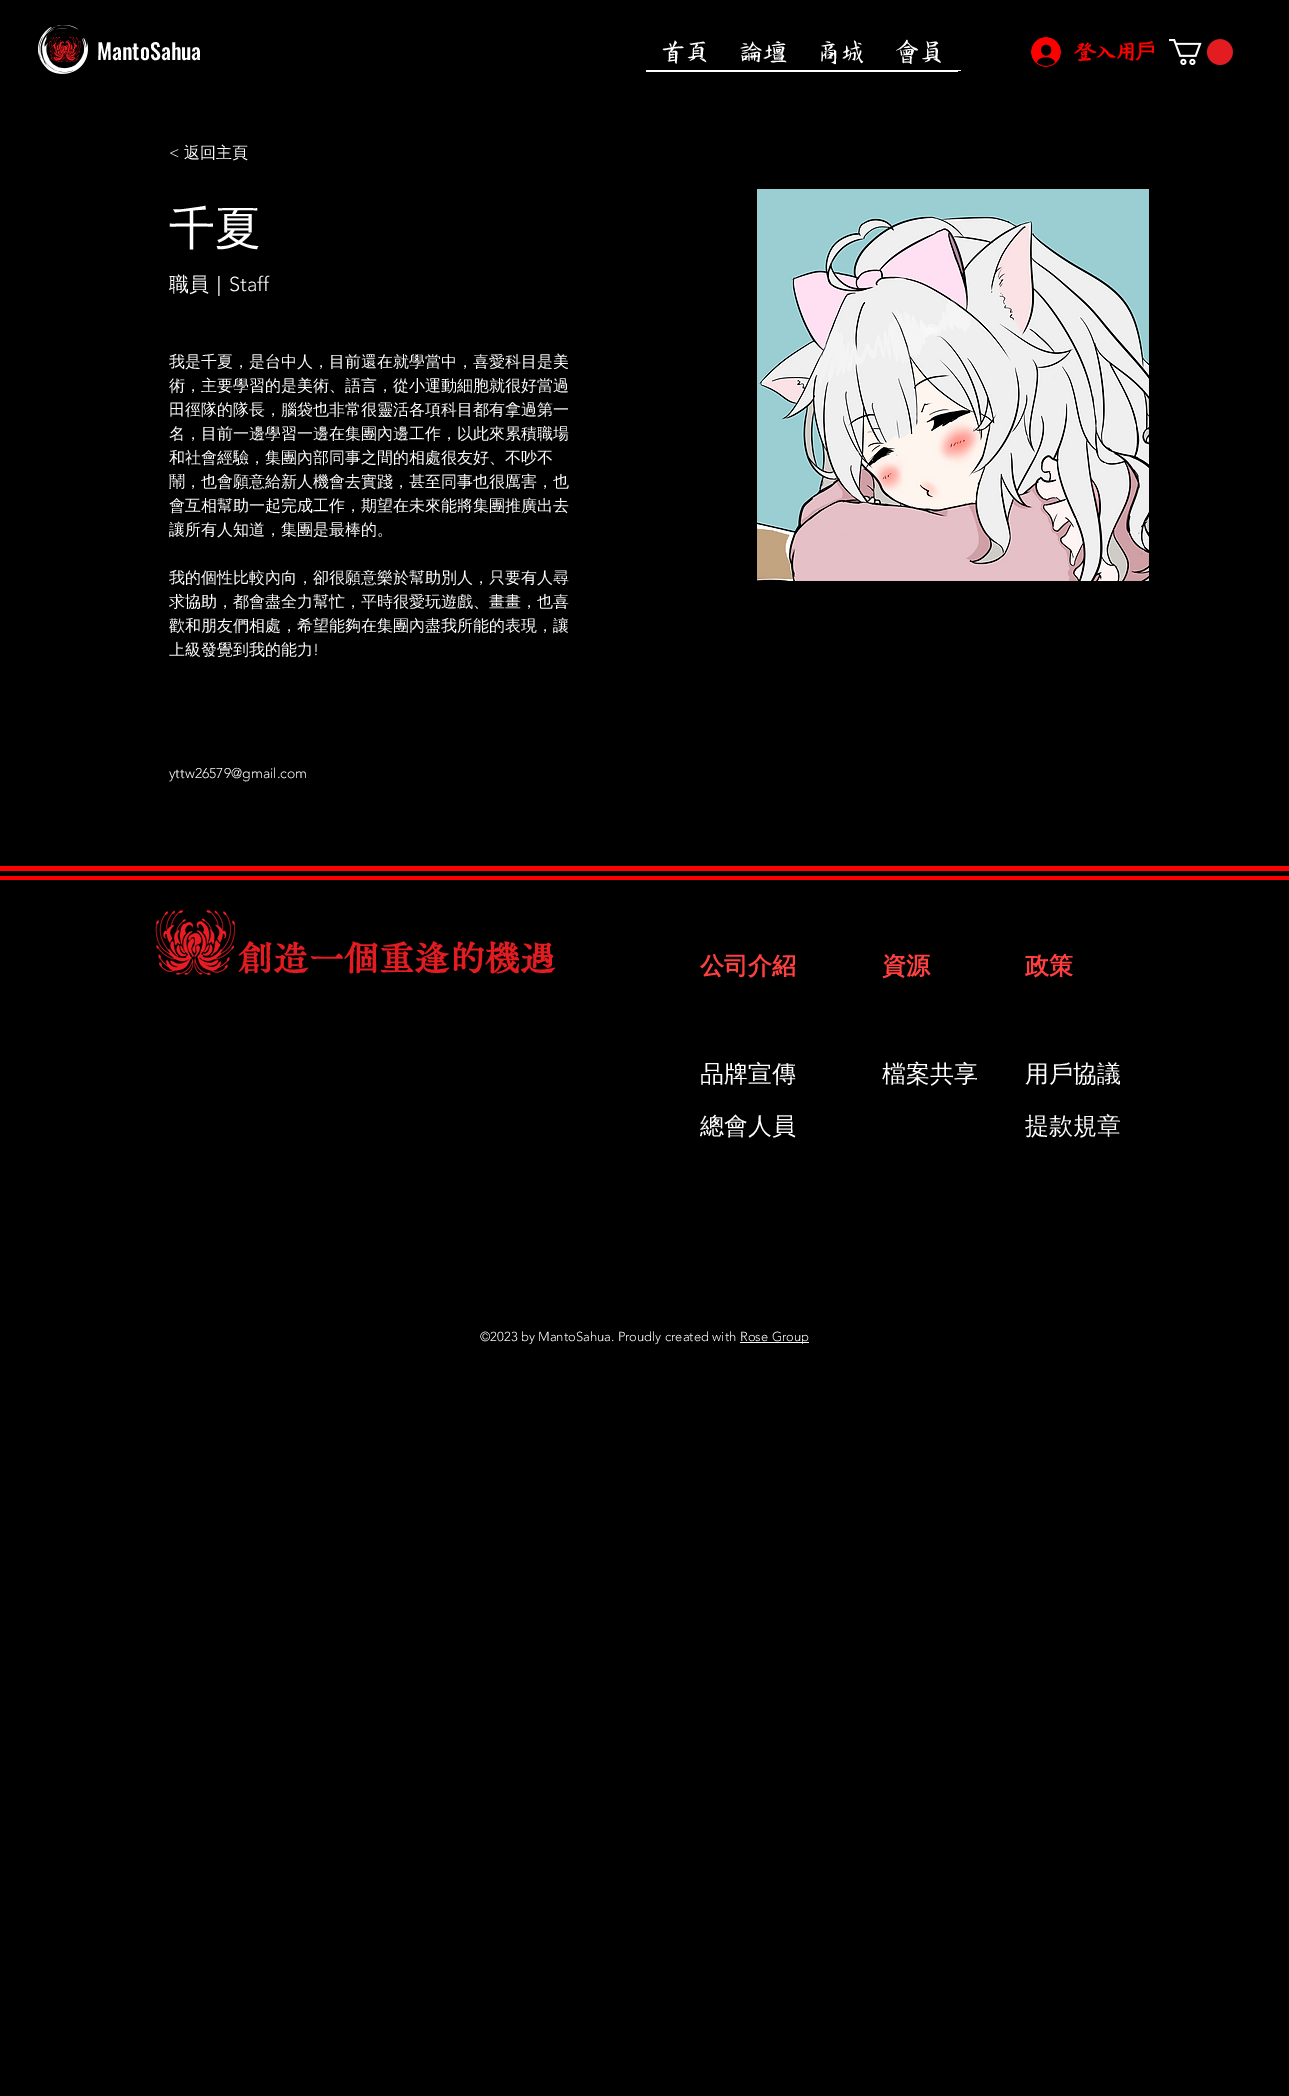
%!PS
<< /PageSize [1289 2096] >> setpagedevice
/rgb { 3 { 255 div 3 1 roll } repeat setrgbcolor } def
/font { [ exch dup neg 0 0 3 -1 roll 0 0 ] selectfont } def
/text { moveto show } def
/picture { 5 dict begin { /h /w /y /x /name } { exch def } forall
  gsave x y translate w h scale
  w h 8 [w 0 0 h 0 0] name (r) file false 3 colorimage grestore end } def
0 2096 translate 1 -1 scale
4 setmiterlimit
0 0 0 rgb
0 0 1289 2096 rectfill
(img_01.rgb) 38 25 50 49 picture
255 255 255 rgb
646 71 312 1 rectfill
646 70 315 1 rectfill
(img_02.rgb) 1031 37 30 30 picture
(img_03.rgb) 1169 39 64 27 picture
(img_04.rgb) 757 189 392 392 picture
255 0 0 rgb
0 866 1289 5 rectfill
0 876 1289 4 rectfill
(img_05.rgb) 155 910 81 66 picture
255 255 255 rgb
740 1342 69 1 rectfill
/Oswald-Medium 22 font
(MantoSahua) 97 60 text
/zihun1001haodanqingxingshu-Regular 24 font
(首頁) 661 59 text
(論壇) 739 59 text
(商城) 817 59 text
(會員) 895 59 text
/zihun1001haodanqingxingshu-Bold 20 font
255 0 0 rgb
(登入用) 1075 58 text
/WenQuanYiZenHei-Bold 20 font
(戶) 1135 58 text
/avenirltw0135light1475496-Light 16 font
255 255 255 rgb
(<) 169 158 text
/WenQuanYiZenHei-Medium 16 font
(返回主頁) 184 158 text
/WenQuanYiZenHei-Medium 46 font
(千夏) 169 244 text
/WenQuanYiZenHei-Medium 20 font
(職員｜) 169 291 text
/avenirltw0135light1475496-Light 20 font
(Staff) 229 291 text
/WenQuanYiZenHei-Medium 16 font
(我是千夏，是台中人，目前還在就學當中，喜愛科目是美) 169 367 text
(術，主要學習的是美術、語言，從小運動細胞就很好當過) 169 391 text
(田徑隊的隊長，腦袋也非常很靈活各項科目都有拿過第一) 169 415 text
(名，目前一邊學習一邊在集團內邊工作，以此來累積職場) 169 439 text
(和社會經驗，集團內部同事之間的相處很友好、不吵不) 169 463 text
(鬧，也會願意給新人機會去實踐，甚至同事也很厲害，也) 169 487 text
(會互相幫助一起完成工作，期望在未來能將集團推廣出去) 169 511 text
(讓所有人知道，集團是最棒的。) 169 535 text
(我的個性比較內向，卻很願意樂於幫助別人，只要有人尋) 169 583 text
(求協助，都會盡全力幫忙，平時很愛玩遊戲、畫畫，也喜) 169 607 text
(歡和朋友們相處，希望能夠在集團內盡我所能的表現，讓) 169 631 text
(上級發覺到我的能力) 169 655 text
/avenirltw0135light1475496-Light 16 font
(!) 313 655 text
/avenirltw0135light1475496-Light 14 font
(yttw26579@gmail.com) 169 778 text
/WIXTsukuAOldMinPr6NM-Bold 35 font
226 28 33 rgb
238 971 moveto 0.25 0 (創造一個重逢的機遇) ashow
/WenQuanYiZenHei-Bold 24 font
255 64 64 rgb
(公司介紹) 700 974 text
(資源) 882 974 text
(政策) 1025 974 text
/WenQuanYiZenHei-Medium 24 font
255 255 255 rgb
(品牌宣傳) 700 1082 text
(檔案共享) 882 1082 text
(用戶協議) 1025 1082 text
(總會人員) 700 1134 text
(提款規章) 1025 1134 text
/avenirltw0135light1475496-Light 13 font
(©2023 by MantoSahua. Proudly created with) 480 1341 text
(Rose Group) 740 1341 text
showpage
